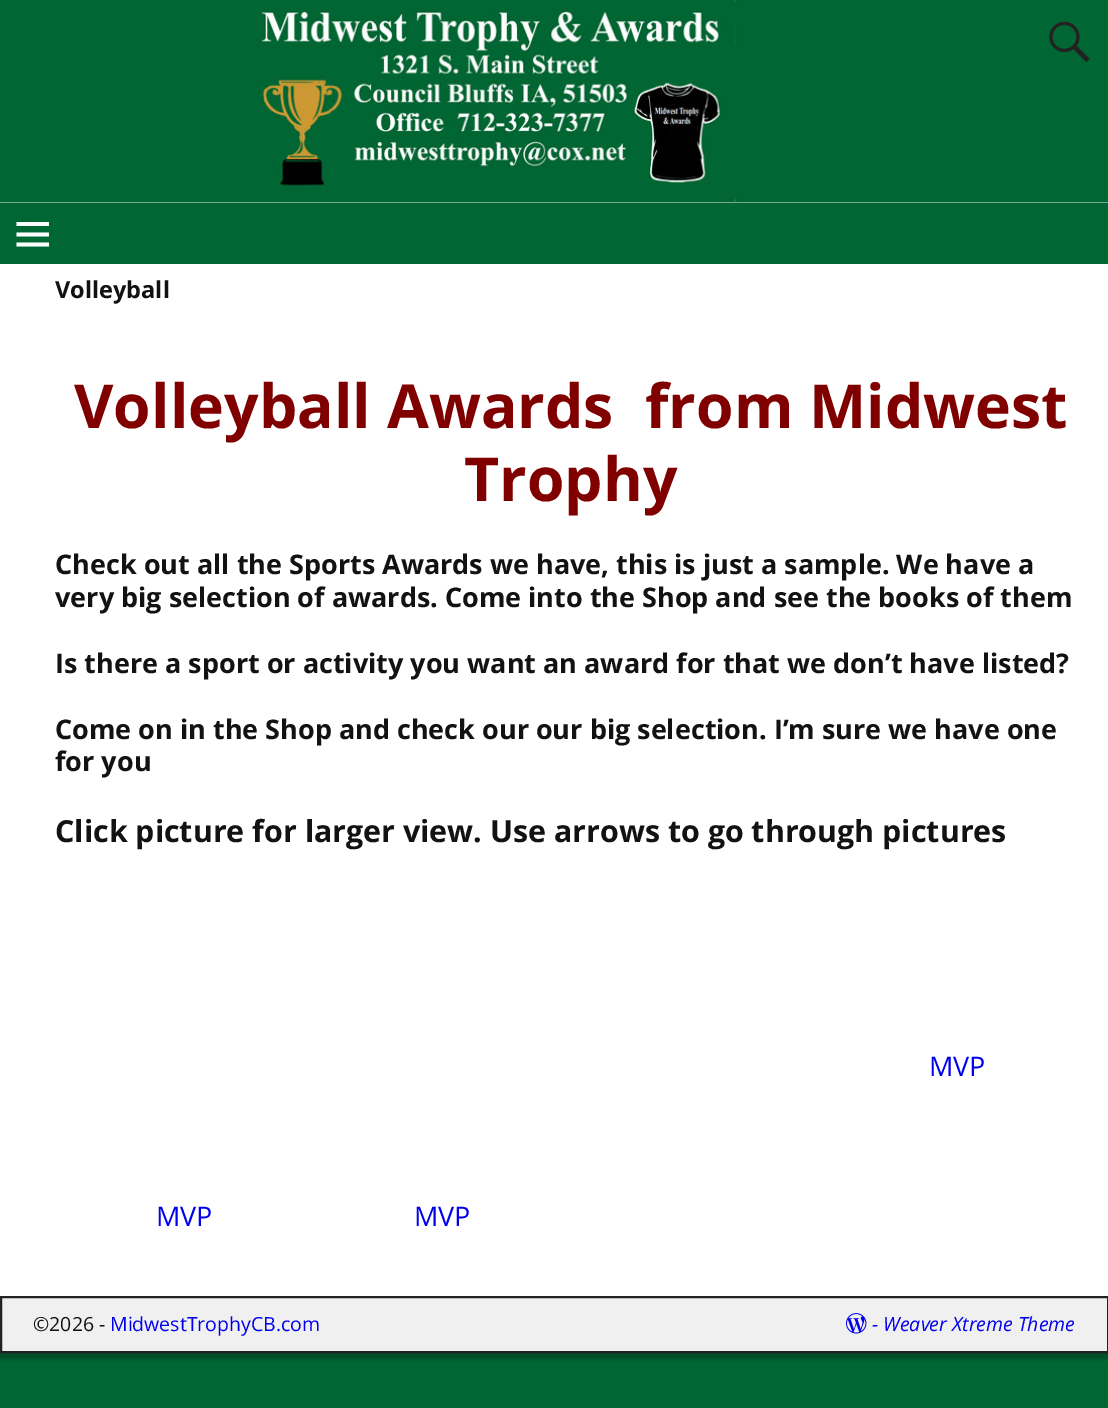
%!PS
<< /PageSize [1108 1408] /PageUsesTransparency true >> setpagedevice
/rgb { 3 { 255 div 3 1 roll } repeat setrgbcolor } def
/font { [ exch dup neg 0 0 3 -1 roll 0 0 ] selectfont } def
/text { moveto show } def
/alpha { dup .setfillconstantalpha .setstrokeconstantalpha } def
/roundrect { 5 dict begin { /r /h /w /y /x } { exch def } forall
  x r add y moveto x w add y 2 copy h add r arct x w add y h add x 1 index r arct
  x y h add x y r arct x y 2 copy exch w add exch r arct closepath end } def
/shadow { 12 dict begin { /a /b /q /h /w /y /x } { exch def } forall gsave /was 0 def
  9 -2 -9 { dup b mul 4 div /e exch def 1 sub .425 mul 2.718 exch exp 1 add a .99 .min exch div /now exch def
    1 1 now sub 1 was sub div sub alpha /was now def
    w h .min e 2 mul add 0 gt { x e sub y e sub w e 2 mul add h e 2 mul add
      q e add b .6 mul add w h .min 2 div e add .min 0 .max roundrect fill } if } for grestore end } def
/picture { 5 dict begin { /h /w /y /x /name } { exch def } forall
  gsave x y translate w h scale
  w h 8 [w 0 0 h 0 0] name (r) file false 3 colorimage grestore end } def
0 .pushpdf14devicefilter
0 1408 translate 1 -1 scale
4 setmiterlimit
0 102 52 rgb
0 0 1108 1408 rectfill
0 0 0 rgb
-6 -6 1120 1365 0 2 0.25 shadow
255 255 255 rgb
0 264 1108 1032 rectfill
240 240 240 rgb
0 202 1108 1 rectfill
(img_01.rgb) 0 0 1108 203 picture
(img_02.rgb) 1049 21 41 42 picture
0 102 52 rgb
0 203 1108 61 rectfill
255 255 255 rgb
16.5 246.5 moveto 0 -4 rlineto 32.5 0 rlineto 0 4 rlineto closepath 16.5 222 moveto 32.5 0 rlineto 0 4 rlineto -32.5 0 rlineto closepath 16.5 236.5 moveto 0 -4 rlineto 32.5 0 rlineto 0 4 rlineto closepath fill
240 240 240 rgb
1 1297 moveto 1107 0 rlineto 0 55 rlineto -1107 0 rlineto closepath gsave fill grestore
34 34 34 rgb
2 setlinewidth
stroke
(img_03.rgb) 846 1313 21 21 picture
/OpenSans-Bold 23.5 font
18 18 18 rgb
(Volleyball) 55 298 text
/OpenSans-Bold 60.75 font
128 0 0 rgb
(Volleyball Awards  from Midwest) 74 428 text
(Trophy) 464 501 text
/OpenSans-Bold 27 font
18 18 18 rgb
(Check out all the Sports Awards we have, this is just a sample. We have a) 55 574 text
(very big selection of awards. Come into the Shop and see the books of them) 55 607 text
(Is there a sport or activity you want an award for that we don’t have listed?) 55 673 text
(Come on in the Shop and check our our big selection. I’m sure we have one) 55 739 text
(for you) 55 771 text
/OpenSans-Bold 30.4 font
(Click picture for larger view. Use arrows to go through pictures) 55 842 text
/OpenSans-Regular 27 font
0 0 238 rgb
(MVP) 929 1076 text
(MVP) 156 1226 text
(MVP) 414 1226 text
/OpenSans-Regular 19.5 font
18 18 18 rgb
(©2026 -) 33 1331 text
0 0 238 rgb
(MidwestTrophyCB.com) 110 1331 text
/OpenSans-Italic 19.5 font
(- Weaver Xtreme Theme) 872 1331 text
.poppdf14devicefilter showpage
